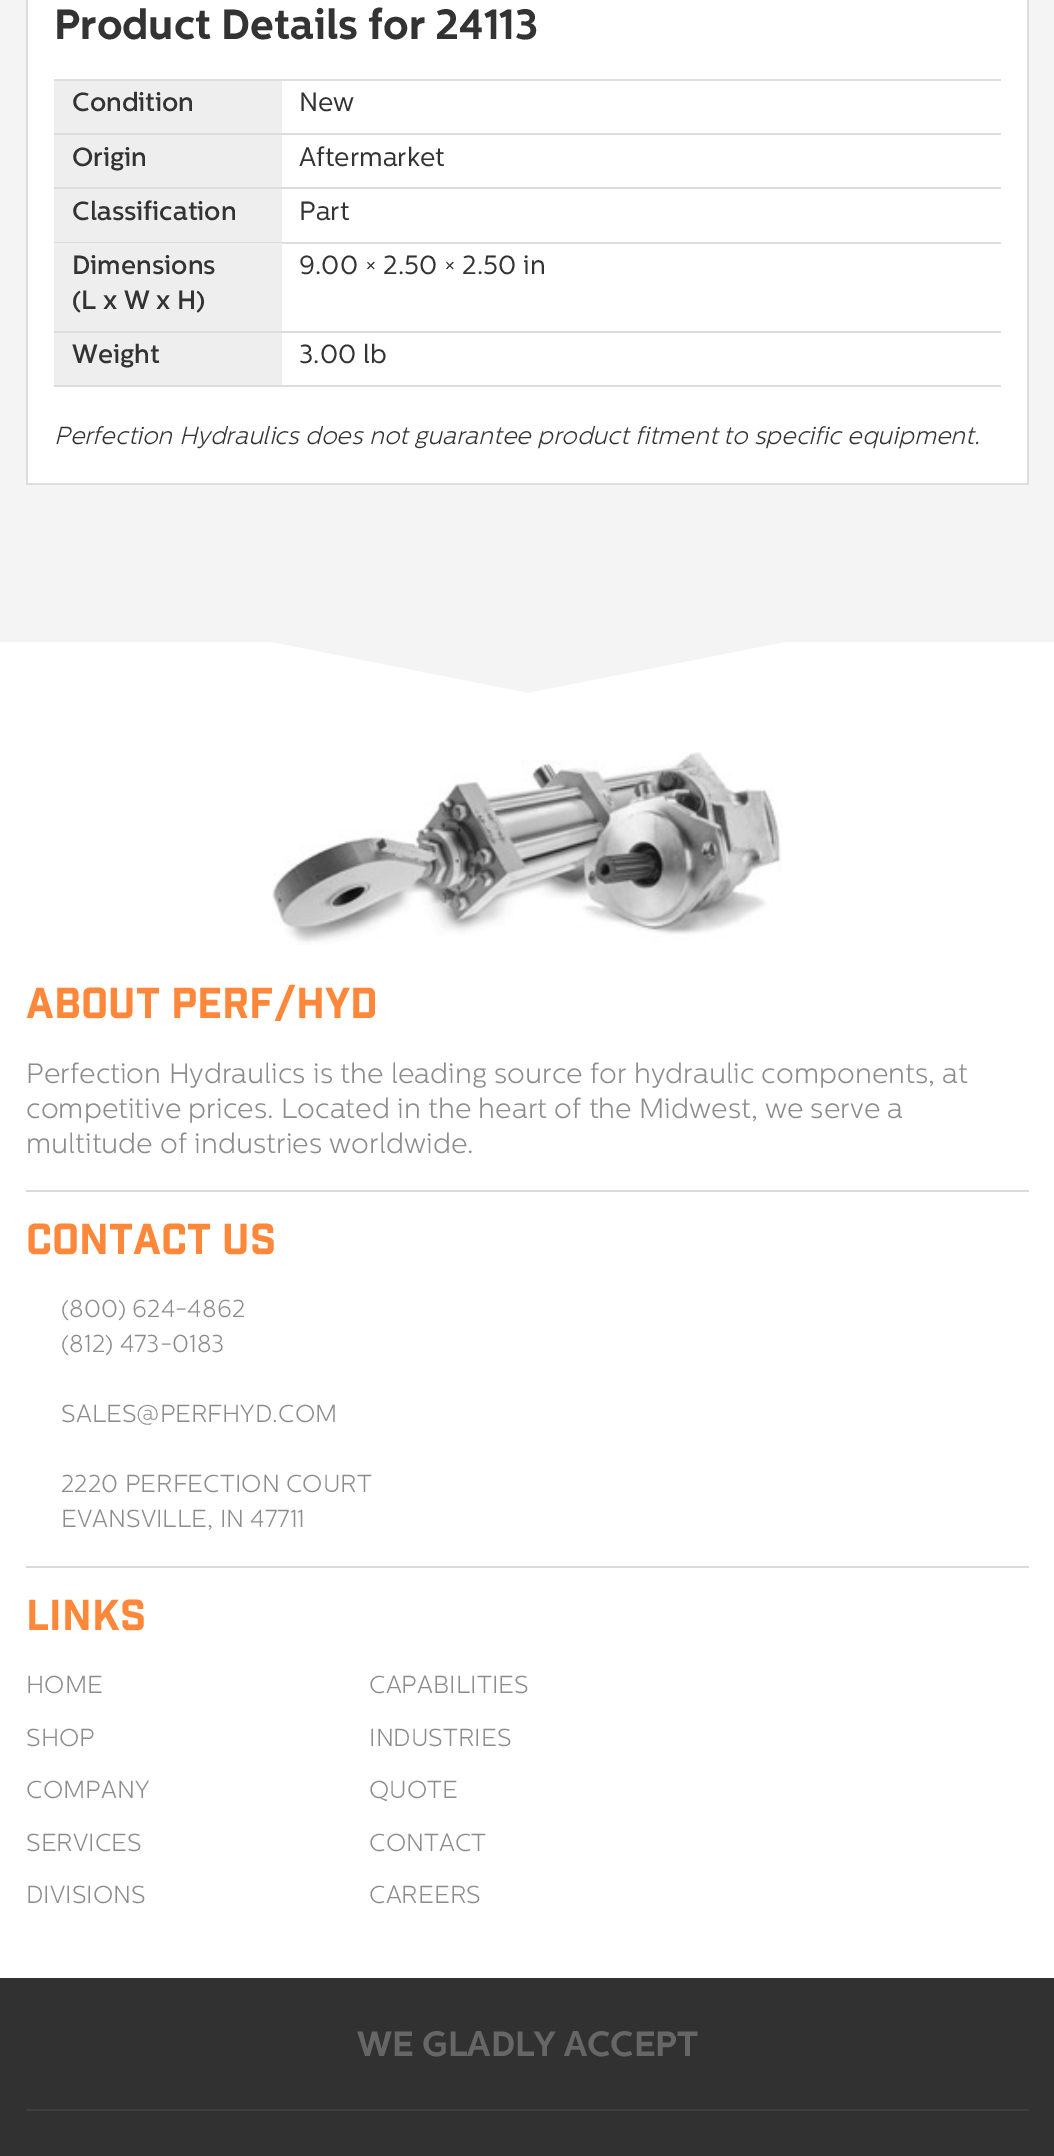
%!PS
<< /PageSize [1054 2156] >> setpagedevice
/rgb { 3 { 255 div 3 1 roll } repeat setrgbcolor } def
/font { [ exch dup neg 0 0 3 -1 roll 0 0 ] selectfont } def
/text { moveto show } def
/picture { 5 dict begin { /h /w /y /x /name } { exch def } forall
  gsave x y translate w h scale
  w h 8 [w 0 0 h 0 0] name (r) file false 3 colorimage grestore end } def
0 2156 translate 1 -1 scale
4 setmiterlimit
255 255 255 rgb
0 0 1054 2156 rectfill
244 244 244 rgb
0 0 1054 642 rectfill
255 255 255 rgb
28 0 999 483 rectfill
221 221 221 rgb
1027 0 2 485 rectfill
26 483 1003 2 rectfill
26 0 2 485 rectfill
54 79 947 2 rectfill
238 238 238 rgb
54 81 228 52 rectfill
221 221 221 rgb
54 133 947 2 rectfill
238 238 238 rgb
54 135 228 52 rectfill
221 221 221 rgb
54 187 947 2 rectfill
238 238 238 rgb
54 189 228 53 rectfill
221 221 221 rgb
54 242 947 2 rectfill
238 238 238 rgb
54 243 228 88 rectfill
221 221 221 rgb
54 331 947 2 rectfill
54 385 947 2 rectfill
238 238 238 rgb
54 333 228 52 rectfill
244 244 244 rgb
271 642 515 51 rectfill
255 255 255 rgb
786 642 moveto 0 51 rlineto -258 0 rlineto closepath fill
271 693 moveto 0 -51 rlineto 257 51 rlineto closepath fill
(img_01.rgb) 272 752 510 193 picture
219 219 219 rgb
26 1190 1003 2 rectfill
26 1566 1003 2 rectfill
49 49 49 rgb
0 1978 1054 178 rectfill
63 62 62 rgb
26 2109 1003 2 rectfill
/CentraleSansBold-Bold 42 font
51 51 51 rgb
(Product Details for 24113) 54 39 text
/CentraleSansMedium-Medium 26.25 font
(Condition) 72 111 text
/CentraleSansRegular-Regular 26.25 font
(New) 299 111 text
/CentraleSansMedium-Medium 26.25 font
(Origin) 72 166 text
/CentraleSansRegular-Regular 26.25 font
(Aftermarket) 299 166 text
/CentraleSansMedium-Medium 26.25 font
(Classification) 72 220 text
/CentraleSansRegular-Regular 26.25 font
(Part) 299 220 text
/CentraleSansMedium-Medium 26.25 font
(Dimensions) 72 274 text
(\(L x W x H\)) 72 309 text
/CentraleSansRegular-Regular 26.25 font
(9.00 × 2.50 × 2.50 in) 299 274 text
/CentraleSansMedium-Medium 26.25 font
(Weight) 72 363 text
/CentraleSansRegular-Regular 26.25 font
(3.00 lb) 299 363 text
/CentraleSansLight-LightItalic 24.5 font
(Perfection Hydraulics does not guarantee product fitment to specific equipment.) 54 444 text
/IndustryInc-Regular 42 font
255 135 57 rgb
(ABOUT PERF/HYD) 26 1018 text
/CentraleSansLight-Light 28 font
141 140 140 rgb
(Perfection Hydraulics is the leading source for hydraulic components, at) 26 1083 text
(competitive prices. Located in the heart of the Midwest, we serve a) 26 1118 text
(multitude of industries worldwide.) 26 1153 text
/IndustryInc-Regular 42 font
255 135 57 rgb
(CONTACT US) 26 1254 text
/CentraleSansLight-Light 24.5 font
141 140 140 rgb
(\(800\) 624-4862) 61 1317 text
(\(812\) 473-0183) 61 1352 text
(SALES@PERFHYD.COM) 61 1422 text
(2220 PERFECTION COURT) 61 1492 text
(EVANSVILLE, IN 47711) 61 1527 text
/IndustryInc-Regular 42 font
255 135 57 rgb
(LINKS) 26 1630 text
/CentraleSansLight-Light 24.5 font
141 140 140 rgb
(HOME) 26 1693 text
(SHOP) 26 1746 text
(COMPANY) 26 1798 text
(SERVICES) 26 1851 text
(DIVISIONS) 26 1903 text
(CAPABILITIES) 369 1693 text
(INDUSTRIES) 369 1746 text
(QUOTE) 369 1798 text
(CONTACT) 369 1851 text
(CAREERS) 369 1903 text
/CentraleSansBold-Bold 35 font
103 102 102 rgb
(WE GLADLY ACCEPT) 357 2056 text
showpage
